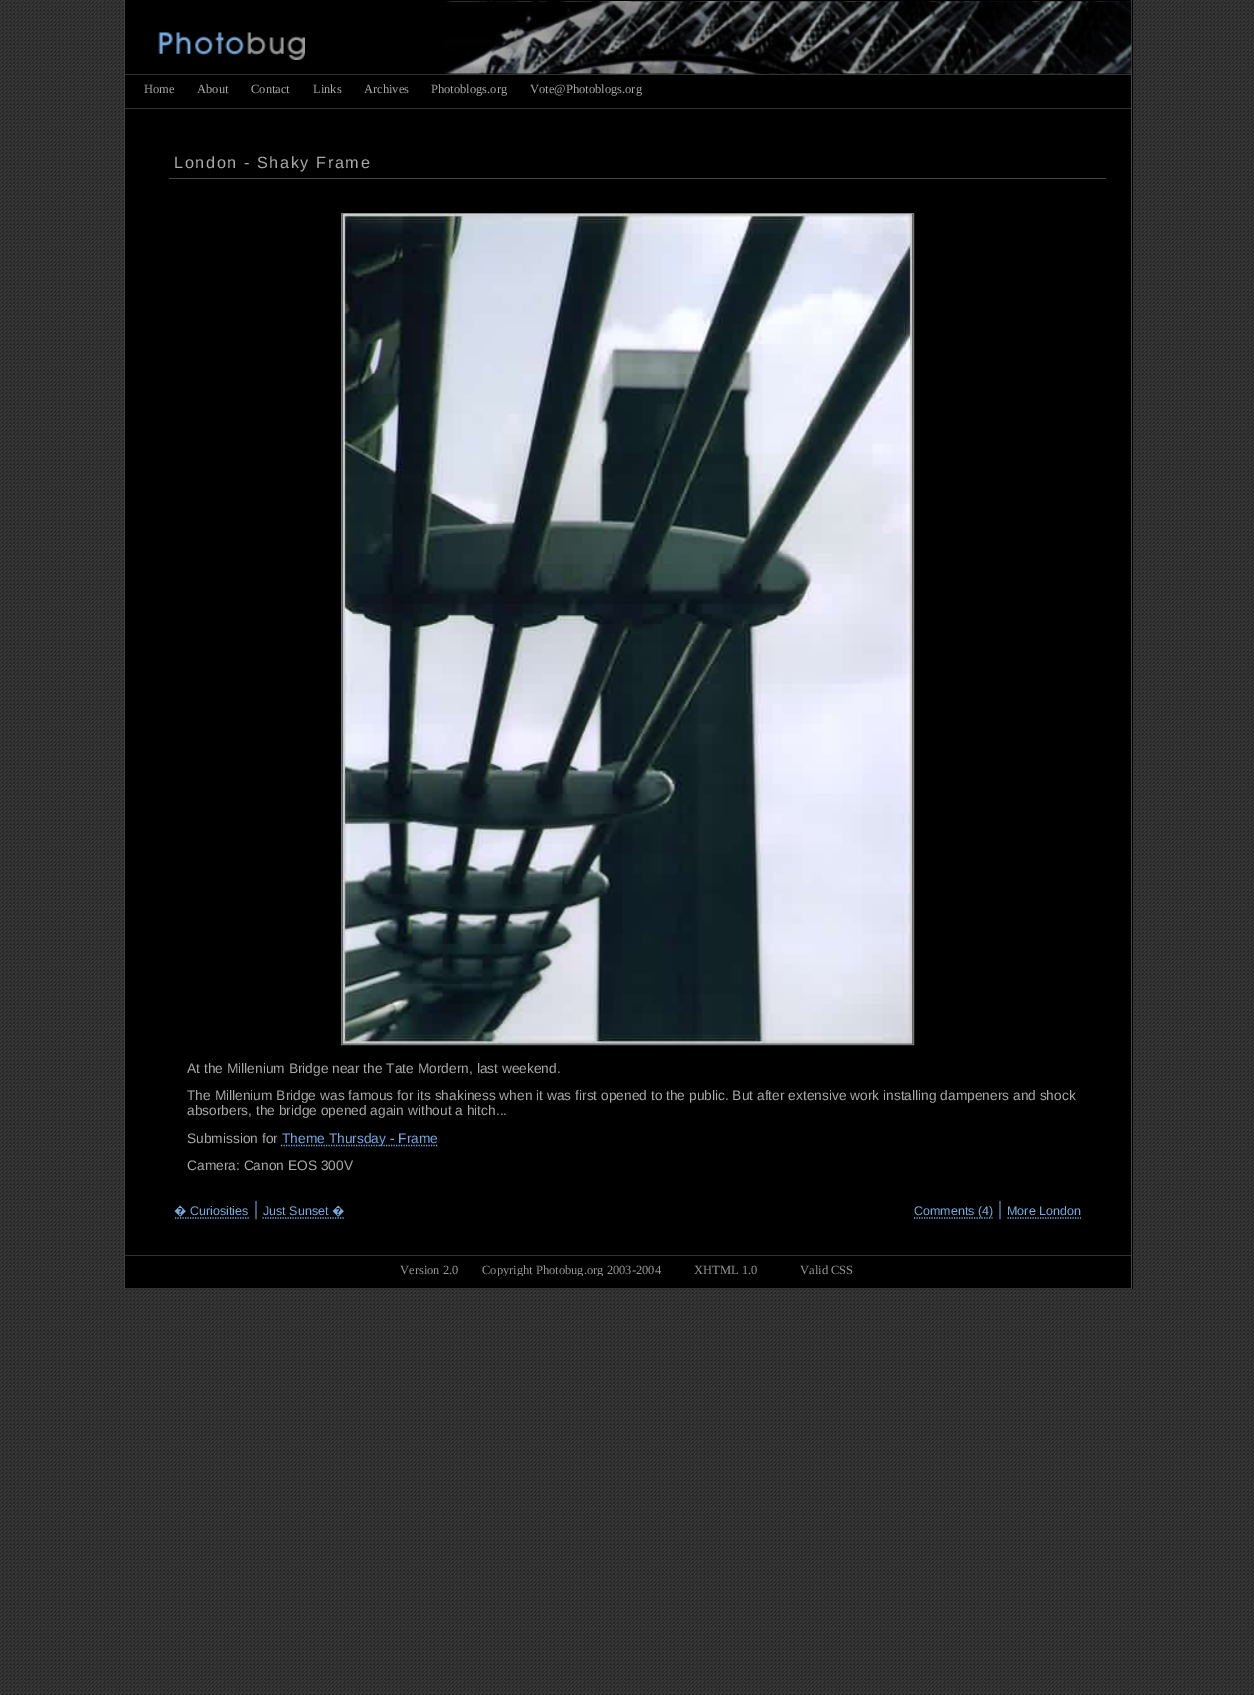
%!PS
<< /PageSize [1254 1695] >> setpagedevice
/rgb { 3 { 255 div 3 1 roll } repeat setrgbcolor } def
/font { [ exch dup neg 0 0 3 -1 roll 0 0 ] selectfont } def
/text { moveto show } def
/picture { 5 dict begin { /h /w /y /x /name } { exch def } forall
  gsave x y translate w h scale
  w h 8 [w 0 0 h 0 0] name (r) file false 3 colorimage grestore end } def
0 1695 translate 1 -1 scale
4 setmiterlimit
255 255 255 rgb
0 0 1254 1695 rectfill
(img_01.rgb) 0 0 1254 1695 picture
0 0 0 rgb
125 0 1008 1289 rectfill
68 68 68 rgb
1131 0 1 1289 rectfill
124 0 1 1289 rectfill
(img_02.rgb) 444 0 688 74 picture
0 0 0 rgb
444 0 687 1 rectfill
(img_03.rgb) 158 32 147 28 picture
50 50 50 rgb
125 74 1006 1 rectfill
125 108 1006 1 rectfill
68 68 68 rgb
169 178 937 1 rectfill
119 119 119 rgb
341.5 213.5 572 831 rectstroke
(img_04.rgb) 342 213 571 831 picture
119 170 221 rgb
1.2 setlinewidth
[1.25 1.25] 0 setdash
281 1145.5 moveto 156.5 0 rlineto stroke
175 1218 moveto 74 0 rlineto stroke
262.5 1218 moveto 81.5 0 rlineto stroke
914 1218 moveto 78.5 0 rlineto stroke
1007.5 1218 moveto 73.5 0 rlineto stroke
50 50 50 rgb
125 1255 1006 1 rectfill
125 1288 1006 1 rectfill
/LiberationSerif-Regular 12.5 font
170 170 170 rgb
(Home) 144 93 text
(About) 197 93 text
(Contact) 251 93 text
(Links) 313 93 text
(Archives) 364 93 text
(Photoblogs.org) 431 93 text
(Vote@Photoblogs.org) 530 93 text
/LiberationSans-Regular 16.25 font
174 168 moveto 1.6 0 (London - Shaky Frame) ashow
/LiberationSans-Regular 13.75 font
(At the Millenium Bridge near the Tate Mordern, last weekend.) 187 1073 text
(The Millenium Bridge was famous for its shakiness when it was first opened to the public. But after extensive work installing dampeners and shock) 187 1100 text
(absorbers, the bridge opened again without a hitch...) 187 1115 text
(Submission for) 187 1143 text
119 170 221 rgb
(Theme Thursday - Frame) 282 1143 text
170 170 170 rgb
(Camera: Canon EOS 300V) 187 1170 text
/NotoSans-Regular 12.5 font
119 170 221 rgb
(�) 174 1215 text
/LiberationSans-Regular 12.5 font
(Curiosities) 190 1215 text
/LiberationSerif-Regular 20 font
(|) 254 1215 text
/LiberationSans-Regular 12.5 font
(Just Sunset) 263 1215 text
/NotoSans-Regular 12.5 font
(�) 332 1215 text
/LiberationSans-Regular 12.5 font
(Comments \(4\)) 914 1215 text
/LiberationSerif-Regular 20 font
(|) 998 1215 text
/LiberationSans-Regular 12.5 font
(More London) 1007 1215 text
/LiberationSerif-Regular 12.5 font
153 153 153 rgb
(Version 2.0) 400 1274 text
gsave
134 1260 997 16 rectclip
(Copyright Photobug.org 2003-2004) 482 1274 text
grestore
(XHTML 1.0) 694 1274 text
(Valid CSS) 800 1274 text
showpage
